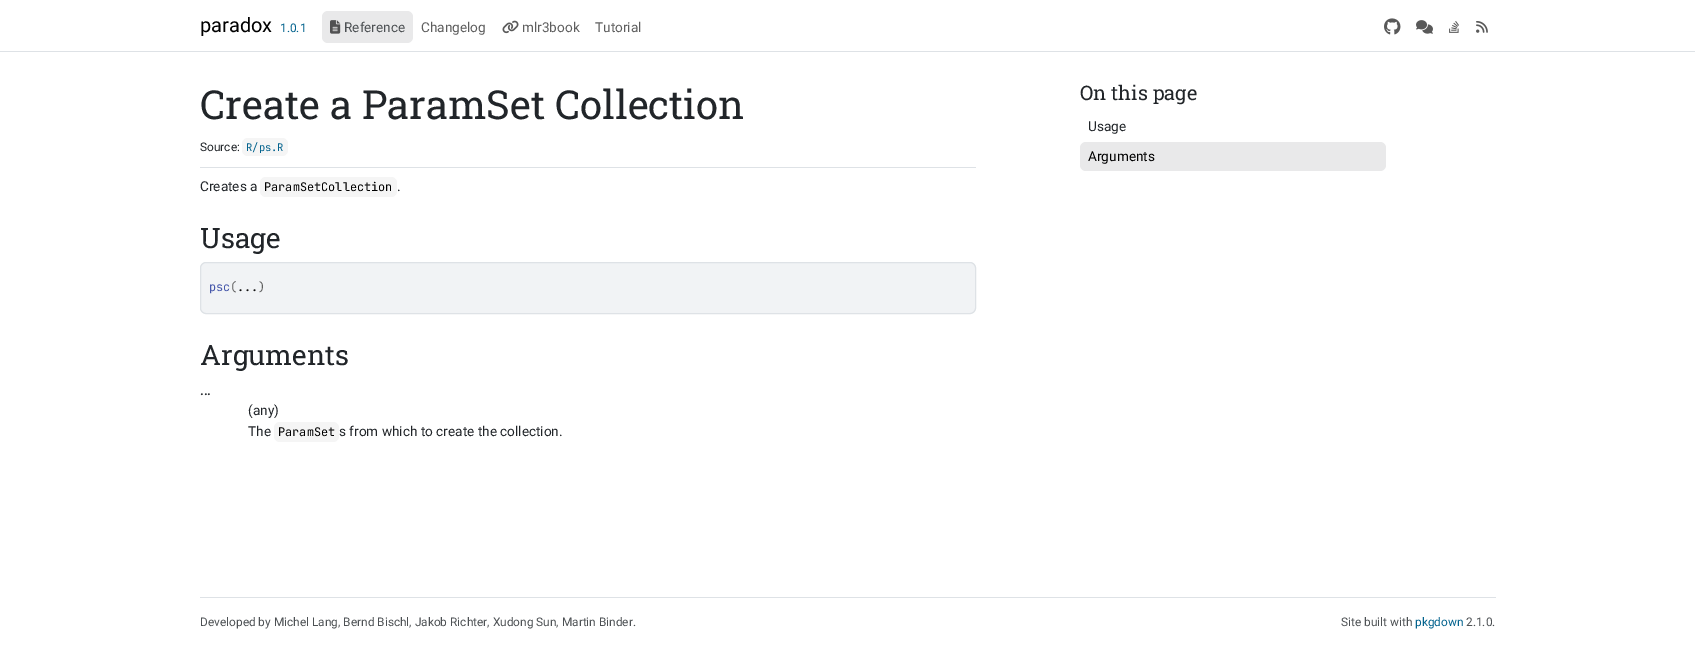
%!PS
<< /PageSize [1695 664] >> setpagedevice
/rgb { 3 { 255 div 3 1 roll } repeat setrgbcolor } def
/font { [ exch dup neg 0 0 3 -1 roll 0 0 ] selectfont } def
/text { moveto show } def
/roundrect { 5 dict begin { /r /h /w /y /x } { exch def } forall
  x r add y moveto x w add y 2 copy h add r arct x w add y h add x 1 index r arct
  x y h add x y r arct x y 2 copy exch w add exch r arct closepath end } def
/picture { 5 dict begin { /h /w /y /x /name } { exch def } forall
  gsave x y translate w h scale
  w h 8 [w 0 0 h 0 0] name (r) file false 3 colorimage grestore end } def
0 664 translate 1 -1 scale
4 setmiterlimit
255 255 255 rgb
0 0 1695 664 rectfill
222 226 230 rgb
0 51 1695 1 rectfill
233 233 234 rgb
322 11 91 32 6 roundrect fill
(img_01.rgb) 330 20 11 14 picture
(img_02.rgb) 502 20 17 14 picture
(img_03.rgb) 1384 18 17 17 picture
(img_04.rgb) 1416 20 17 14 picture
(img_05.rgb) 1449 21 10 12 picture
(img_06.rgb) 1476 21 12 12 picture
222 226 230 rgb
200 167 776 1 rectfill
245 245 245 rgb
242 138 46 18 6 roundrect fill
260 177 137 20 6 roundrect fill
241 243 245 rgb
200.5 262.5 775 51 5.5 roundrect gsave fill grestore
222 226 230 rgb
stroke
245 245 245 rgb
274 422 65 20 6 roundrect fill
233 233 234 rgb
1080 142 306 29 6 roundrect fill
222 226 230 rgb
200 597 1296 1 rectfill
/Roboto-Regular 20 font
0 0 0 rgb
(paradox) 200 32 text
/Roboto-Regular 11.9 font
3 99 142 rgb
(1.0.1) 280 32 text
/Roboto-Regular 13.6 font
77 81 84 rgb
(Reference) 344 32 text
94 94 94 rgb
(Changelog) 421 32 text
(mlr3book) 522 32 text
(Tutorial) 595 32 text
/RobotoSlab-Regular 40 font
33 37 41 rgb
(Create a ParamSet Collection) 200 119 text
/Roboto-Regular 11.9 font
(Source:) 200 151 text
/JetBrainsMono-Regular 10.5 font
3 99 142 rgb
(R/ps.R) 246 151 text
/Roboto-Regular 13.6 font
33 37 41 rgb
(Creates a) 200 191 text
/JetBrainsMono-Regular 11.9 font
0 0 0 rgb
(ParamSetCollection) 264 191 text
/Roboto-Regular 13.6 font
33 37 41 rgb
(.) 397 191 text
/RobotoSlab-Regular 28 font
(Usage) 200 248 text
/JetBrainsMono-Regular 11.9 font
71 88 171 rgb
(psc) 209 291 text
94 94 94 rgb
(\() 230 291 text
17 17 17 rgb
(...) 237 291 text
94 94 94 rgb
(\)) 258 291 text
/RobotoSlab-Regular 28 font
33 37 41 rgb
(Arguments) 200 365 text
/Roboto-Bold 13.6 font
(...) 200 395 text
/Roboto-Regular 13.6 font
(\(any\)) 248 415 text
(The) 248 436 text
/JetBrainsMono-Regular 11.9 font
0 0 0 rgb
(ParamSet) 278 436 text
/Roboto-Regular 13.6 font
33 37 41 rgb
(s from which to create the collection.) 339 436 text
/RobotoSlab-Regular 20 font
(On this page) 1080 100 text
/Roboto-Regular 13.6 font
(Usage) 1088 131 text
0 0 0 rgb
(Arguments) 1088 161 text
/Roboto-Regular 11.9 font
77 81 84 rgb
(Developed by Michel Lang, Bernd Bischl, Jakob Richter, Xudong Sun, Martin Binder.) 200 626 text
(Site built with) 1341 626 text
3 99 142 rgb
(pkgdown) 1415 626 text
77 81 84 rgb
(2.1.0.) 1466 626 text
showpage
